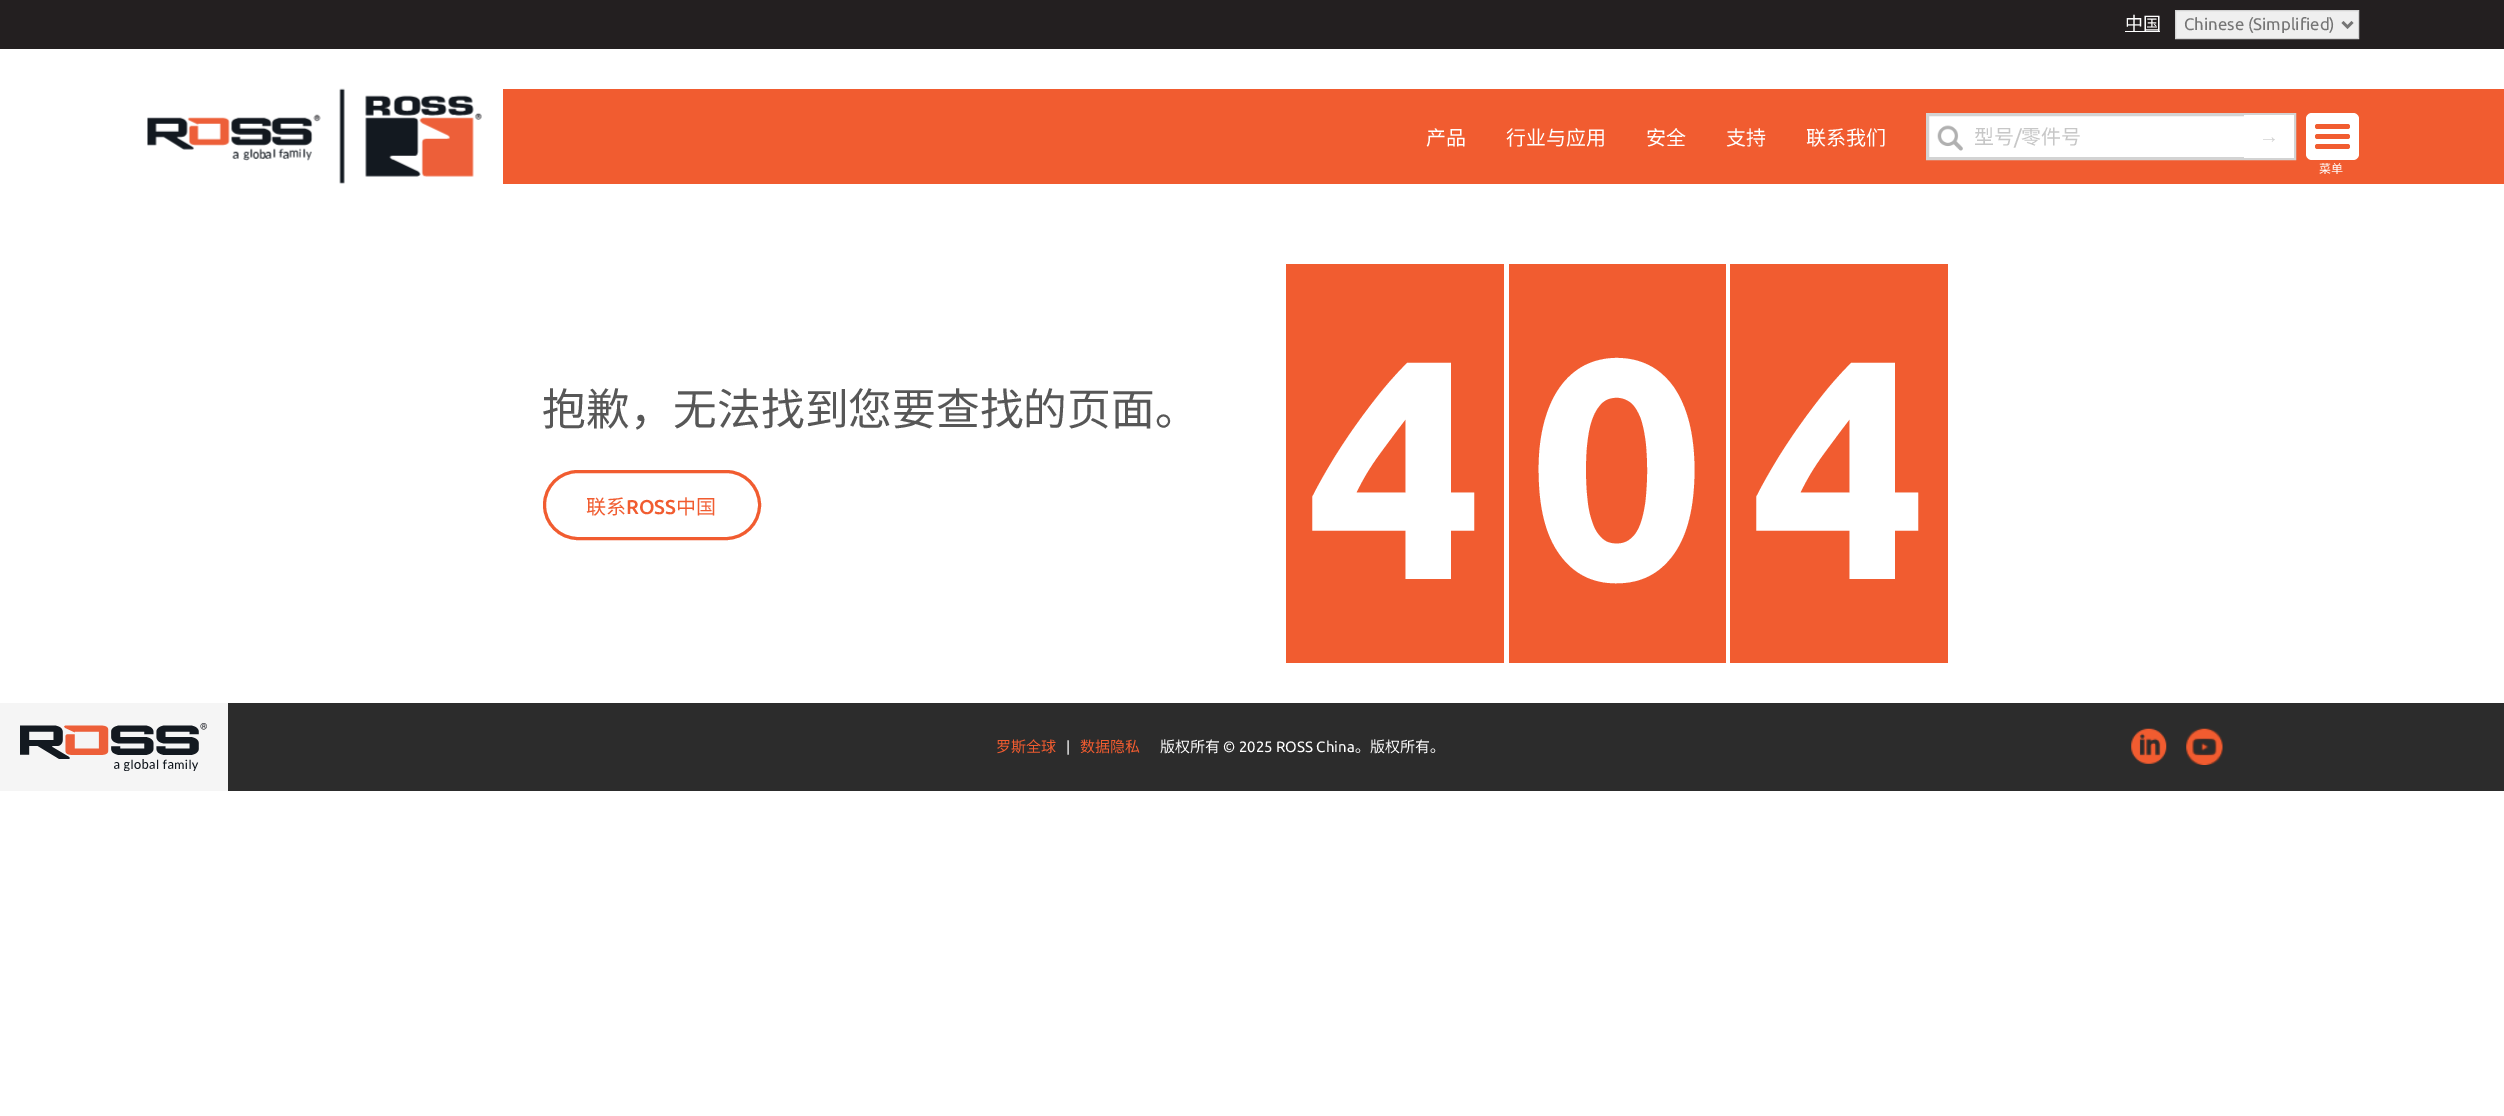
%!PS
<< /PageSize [2504 1116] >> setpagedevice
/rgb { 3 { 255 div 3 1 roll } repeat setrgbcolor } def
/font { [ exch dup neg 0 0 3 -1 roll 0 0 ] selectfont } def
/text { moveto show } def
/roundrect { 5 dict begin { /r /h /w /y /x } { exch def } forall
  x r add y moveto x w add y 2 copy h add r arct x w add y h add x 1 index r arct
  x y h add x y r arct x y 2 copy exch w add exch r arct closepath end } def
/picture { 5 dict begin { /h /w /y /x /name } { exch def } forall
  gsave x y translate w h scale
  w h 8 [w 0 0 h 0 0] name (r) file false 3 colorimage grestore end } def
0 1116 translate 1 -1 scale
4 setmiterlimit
255 255 255 rgb
0 0 2504 1116 rectfill
35 31 32 rgb
0 0 2504 49 rectfill
255 255 255 rgb
2125 31 35 1 rectfill
239 239 239 rgb
2175.5 10.5 moveto 183 0 rlineto 0 28 rlineto -183 0 rlineto closepath gsave fill grestore
211 211 211 rgb
stroke
117 117 117 rgb
2.5 setlinewidth
2342.5 22 moveto 5 5 rlineto 5 -5 rlineto stroke
(img_01.rgb) 147 88 335 96 picture
241 92 48 rgb
503 89 2001 95 rectfill
255 255 255 rgb
1929 116 315 41 rectfill
211 211 211 rgb
3 setlinewidth
1927.5 114.5 367 44 rectstroke
(img_02.rgb) 1937 125 26 26 picture
255 255 255 rgb
2244 115 50 43 rectfill
2306 113 53 47 6 roundrect fill
241 92 48 rgb
2315 134 35 5 2.5 roundrect fill
2315 124 35 5 2.5 roundrect fill
2315 144 35 5 2.5 roundrect fill
544.5 471.5 215 67 33.5 roundrect stroke
1286 264 218 399 rectfill
1509 264 217 399 rectfill
1730 264 218 399 rectfill
245 245 245 rgb
0 703 228 88 rectfill
(img_03.rgb) 20 723 187 48 picture
44 44 44 rgb
228 703 2276 88 rectfill
(img_04.rgb) 2131 728 36 36 picture
(img_05.rgb) 2186 728 37 37 picture
/NotoSansCJKSC-Regular 18 font
255 255 255 rgb
(中国) 2125 30 text
/Ubuntu-Regular 16.75 font
117 117 117 rgb
(Chinese \(Simplified\)) 2184 30 text
/NotoSansCJKSC-Regular 20 font
255 255 255 rgb
(产品) 1426 145 text
(行业与应用) 1506 145 text
(安全) 1646 145 text
(支持) 1726 145 text
(联系我们) 1806 145 text
199 199 199 rgb
(型号) 1974 144 text
/Ubuntu-Regular 20 font
(/) 2014 144 text
/NotoSansCJKSC-Regular 20 font
(零件号) 2021 144 text
/LiberationSans-Regular 20 font
211 211 211 rgb
(→) 2259 143 text
/NotoSansCJKSC-Regular 12 font
255 255 255 rgb
(菜单) 2319 173 text
/NotoSansCJKSC-Regular 43.75 font
87 87 87 rgb
(抱歉，无法找到您要查找的页面。) 542 425 text
/NotoSansCJKSC-Regular 20 font
241 92 48 rgb
(联系) 586 514 text
/Ubuntu-Medium 20 font
(ROSS) 626 514 text
/NotoSansCJKSC-Regular 20 font
(中国) 676 514 text
/Ubuntu-Bold 312 font
255 255 255 rgb
(4) 1306 579 text
(0) 1528 579 text
(4) 1750 579 text
/NotoSansCJKSC-Regular 15 font
241 92 48 rgb
(罗斯全球) 996 752 text
/Ubuntu-Regular 15 font
255 255 255 rgb
(|) 1066 752 text
/NotoSansCJKSC-Regular 15 font
241 92 48 rgb
(数据隐私) 1080 752 text
255 255 255 rgb
(版权所有) 1160 752 text
/Ubuntu-Regular 15 font
(© 2025 ROSS China) 1223 752 text
/NotoSansCJKSC-Regular 15 font
(。版权所有。) 1355 752 text
showpage
